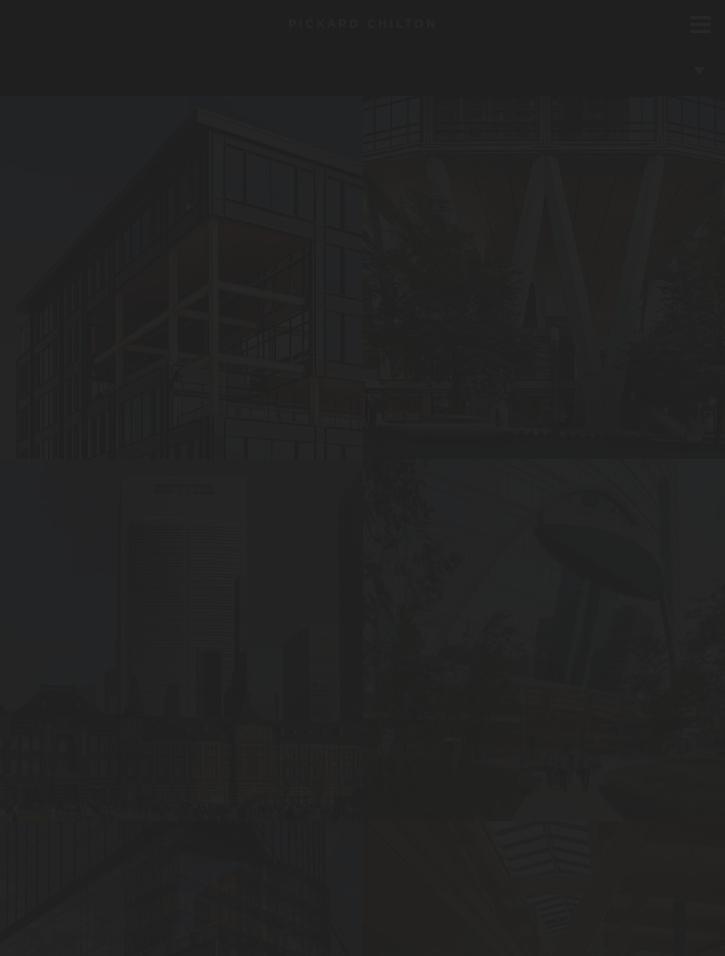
%!PS
<< /PageSize [725 956] >> setpagedevice
/rgb { 3 { 255 div 3 1 roll } repeat setrgbcolor } def
/picture { 5 dict begin { /h /w /y /x /name } { exch def } forall
  gsave x y translate w h scale
  w h 8 [w 0 0 h 0 0] name (r) file false 3 colorimage grestore end } def
0 956 translate 1 -1 scale
4 setmiterlimit
255 255 255 rgb
0 0 725 956 rectfill
31 31 31 rgb
0 0 725 96 rectfill
(img_01.rgb) 289 19 146 10 picture
(img_02.rgb) 690 15 21 18 picture
(img_03.rgb) 694 67 11 8 picture
(img_04.rgb) 0 96 363 363 picture
(img_05.rgb) 363 96 362 363 picture
(img_06.rgb) 0 459 363 362 picture
(img_07.rgb) 363 459 362 362 picture
(img_08.rgb) 0 821 363 135 picture
(img_09.rgb) 363 821 362 135 picture
showpage
